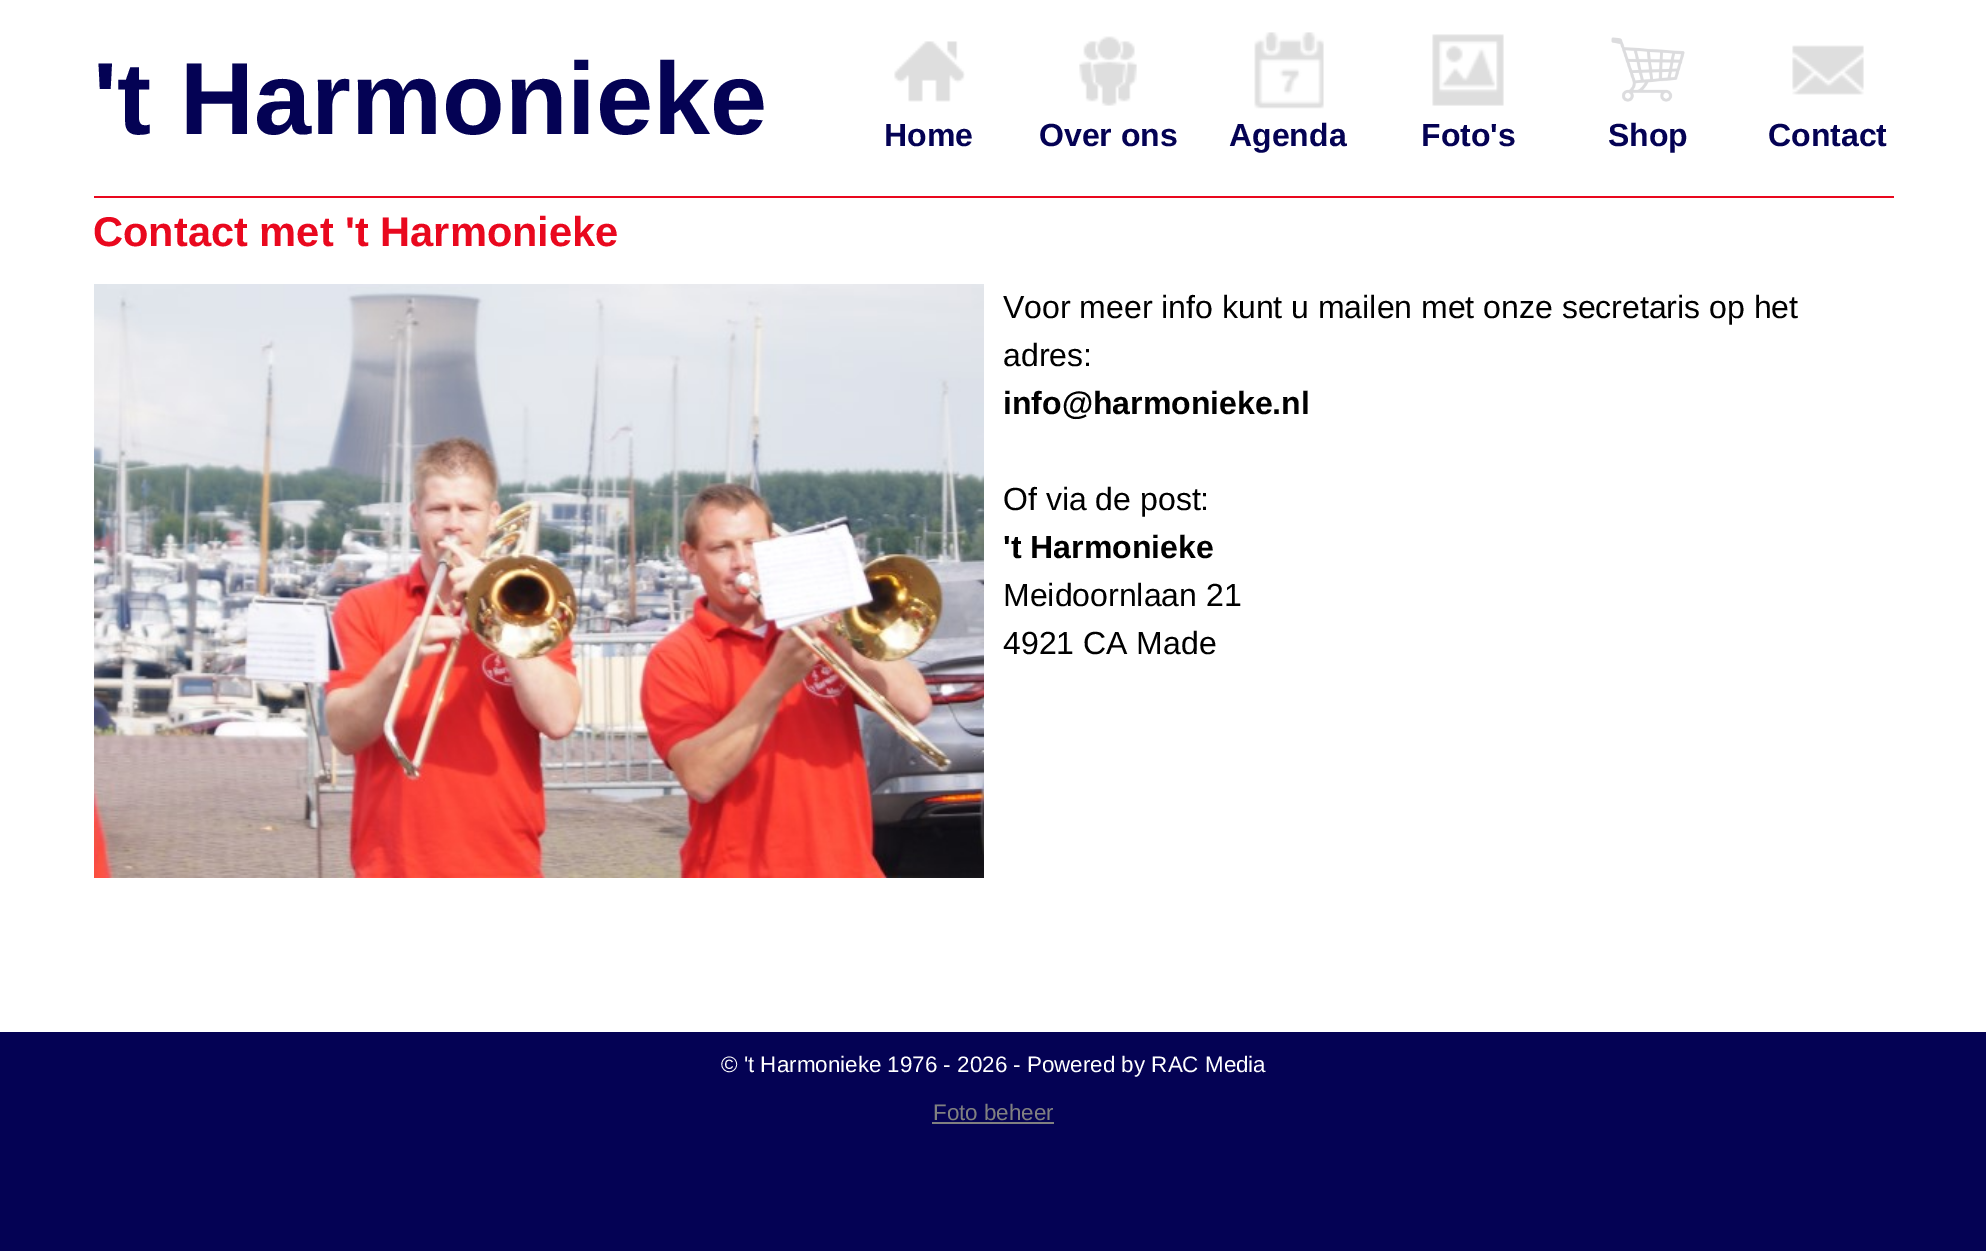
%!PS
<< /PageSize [1986 1251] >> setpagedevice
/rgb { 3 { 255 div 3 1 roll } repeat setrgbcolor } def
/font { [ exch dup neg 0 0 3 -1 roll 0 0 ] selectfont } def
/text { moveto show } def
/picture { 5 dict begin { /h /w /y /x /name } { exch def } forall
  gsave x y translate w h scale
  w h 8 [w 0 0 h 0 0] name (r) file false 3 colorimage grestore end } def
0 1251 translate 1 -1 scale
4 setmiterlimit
255 255 255 rgb
0 0 1986 1251 rectfill
(img_01.rgb) 894 41 71 61 picture
(img_02.rgb) 1079 36 58 70 picture
(img_03.rgb) 1254 32 70 77 picture
(img_04.rgb) 1432 34 72 72 picture
(img_05.rgb) 1611 37 74 65 picture
(img_06.rgb) 1792 45 72 50 picture
233 8 30 rgb
94 196 1800 2 rectfill
(img_07.rgb) 94 284 890 594 picture
4 2 84 rgb
0 1032 1986 219 rectfill
128 128 128 rgb
932 1122 122 2 rectfill
/LiberationSans-Bold 102.5 font
4 2 84 rgb
('t Harmonieke) 93 134 text
/LiberationSans-Bold 32 font
(Home) 884 146 text
(Over ons) 1039 146 text
(Agenda) 1229 146 text
(Foto's) 1421 146 text
(Shop) 1608 146 text
(Contact) 1768 146 text
/LiberationSans-Bold 41.6 font
233 8 30 rgb
(Contact met 't Harmonieke) 93 246 text
/LiberationSans-Regular 32 font
0 0 0 rgb
(Voor meer info kunt u mailen met onze secretaris op het) 1003 318 text
(adres:) 1003 366 text
/LiberationSans-Bold 32 font
(info@harmonieke.nl) 1003 414 text
/LiberationSans-Regular 32 font
(Of via de post:) 1003 510 text
/LiberationSans-Bold 32 font
('t Harmonieke) 1003 558 text
/LiberationSans-Regular 32 font
(Meidoornlaan 21) 1003 606 text
(4921 CA Made) 1003 654 text
/LiberationSans-Regular 22.4 font
255 255 255 rgb
(© 't Harmonieke 1976 - 2026 - Powered by RAC Media) 721 1072 text
128 128 128 rgb
(Foto beheer) 933 1120 text
showpage
